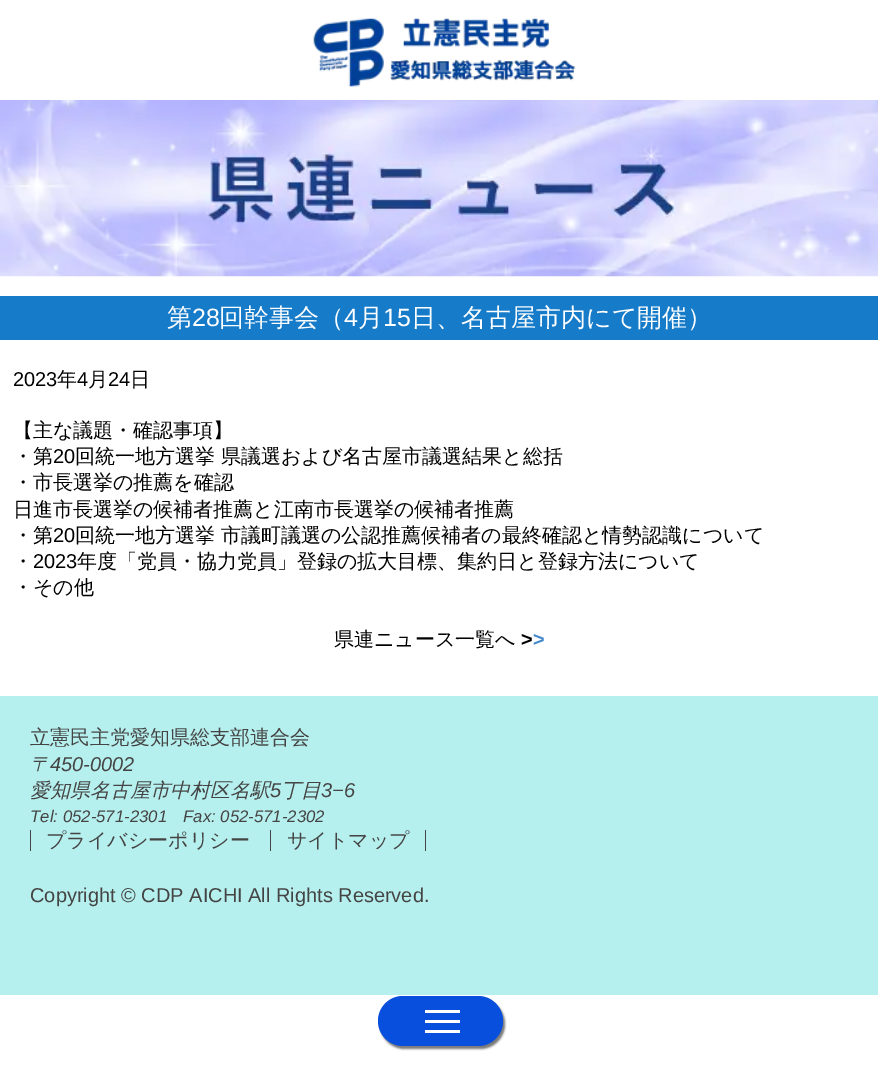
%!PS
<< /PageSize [878 1083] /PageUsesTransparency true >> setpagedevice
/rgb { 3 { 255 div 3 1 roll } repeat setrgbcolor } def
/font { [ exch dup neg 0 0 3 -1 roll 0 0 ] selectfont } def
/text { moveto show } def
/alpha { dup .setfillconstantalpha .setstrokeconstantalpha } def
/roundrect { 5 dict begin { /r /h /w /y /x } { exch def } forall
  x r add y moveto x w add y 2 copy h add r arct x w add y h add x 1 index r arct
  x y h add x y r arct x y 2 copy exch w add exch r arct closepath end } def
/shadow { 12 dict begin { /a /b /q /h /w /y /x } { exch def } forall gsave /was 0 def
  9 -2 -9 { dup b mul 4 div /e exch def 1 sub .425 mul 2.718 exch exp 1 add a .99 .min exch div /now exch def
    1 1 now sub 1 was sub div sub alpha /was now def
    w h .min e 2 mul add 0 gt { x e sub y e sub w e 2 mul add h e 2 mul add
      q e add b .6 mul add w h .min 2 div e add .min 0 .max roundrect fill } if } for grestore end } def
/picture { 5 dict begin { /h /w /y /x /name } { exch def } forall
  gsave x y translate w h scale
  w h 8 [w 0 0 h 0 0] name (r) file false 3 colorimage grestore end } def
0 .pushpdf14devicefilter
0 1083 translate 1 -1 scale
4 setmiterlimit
255 255 255 rgb
0 0 878 1083 rectfill
(img_01.rgb) 313 18 263 69 picture
(img_02.rgb) 0 100 878 177 picture
22 123 201 rgb
0 296 878 44 rectfill
182 240 238 rgb
0 696 878 299 rectfill
68 68 68 rgb
30 830 1 21 rectfill
425 830 1 21 rectfill
270 830 1 21 rectfill
119 119 119 rgb
380 999 125 50 25 1 1 shadow
9 79 221 rgb
378 996 125 50 25 roundrect fill
255 255 255 rgb
425 1020 35 3 rectfill
425 1010 35 3 rectfill
425 1030 35 3 rectfill
/WenQuanYiZenHei-Medium 25 font
(第) 167 326 text
/LiberationSans-Regular 25 font
(28) 192 326 text
/WenQuanYiZenHei-Medium 25 font
(回幹事会（) 219 326 text
/LiberationSans-Regular 25 font
(4) 344 326 text
/WenQuanYiZenHei-Medium 25 font
(月) 358 326 text
/LiberationSans-Regular 25 font
(15) 383 326 text
/WenQuanYiZenHei-Medium 25 font
(日、名古屋市内にて開催）) 411 326 text
/LiberationSans-Regular 20 font
0 0 0 rgb
(2023) 13 386 text
/WenQuanYiZenHei-Medium 20 font
(年) 57 386 text
/LiberationSans-Regular 20 font
(4) 77 386 text
/WenQuanYiZenHei-Medium 20 font
(月) 88 386 text
/LiberationSans-Regular 20 font
(24) 108 386 text
/WenQuanYiZenHei-Medium 20 font
(日) 130 386 text
(【主な議題・確認事項】) 13 437 text
(・第) 13 463 text
/LiberationSans-Regular 20 font
(20) 53 463 text
/WenQuanYiZenHei-Medium 20 font
(回統一地方選挙 県議選および名古屋市議選結果と総括) 75 463 text
(・市長選挙の推薦を確認) 13 489 text
(日進市長選挙の候補者推薦と江南市長選挙の候補者推薦) 13 516 text
(・第) 13 542 text
/LiberationSans-Regular 20 font
(20) 53 542 text
/WenQuanYiZenHei-Medium 20 font
(回統一地方選挙 市議町議選の公認推薦候補者の最終確認と情勢認識について) 75 542 text
(・) 13 568 text
/LiberationSans-Regular 20 font
(2023) 33 568 text
/WenQuanYiZenHei-Medium 20 font
(年度「党員・協力党員」登録の拡大目標、集約日と登録方法について) 77 568 text
(・その他) 13 594 text
(県連ニュース一覧へ) 334 646 text
/LiberationSans-Bold 20 font
(>) 521 646 text
68 136 204 rgb
(>) 533 646 text
/WenQuanYiZenHei-Medium 20 font
68 68 68 rgb
(立憲民主党愛知県総支部連合会) 30 744 text
/WenQuanYiZenHei-MediumItalic 20 font
(〒) 30 771 text
/LiberationSans-Italic 20 font
(450-0002) 50 771 text
/WenQuanYiZenHei-MediumItalic 20 font
(愛知県名古屋市中村区名駅) 30 797 text
/LiberationSans-Italic 20 font
(5) 270 797 text
/WenQuanYiZenHei-MediumItalic 20 font
(丁目) 281 797 text
/LiberationSans-Italic 20 font
(3−6) 321 797 text
/LiberationSans-Italic 16.75 font
(Tel: 052-571-2301) 30 822 text
(Fax: 052-571-2302) 183 822 text
/WenQuanYiZenHei-Medium 20 font
(プライバシーポリシー) 46 847 text
(サイトマップ) 287 847 text
/LiberationSans-Regular 20 font
(Copyright © CDP AICHI All Rights Reserved.) 30 902 text
.poppdf14devicefilter showpage
